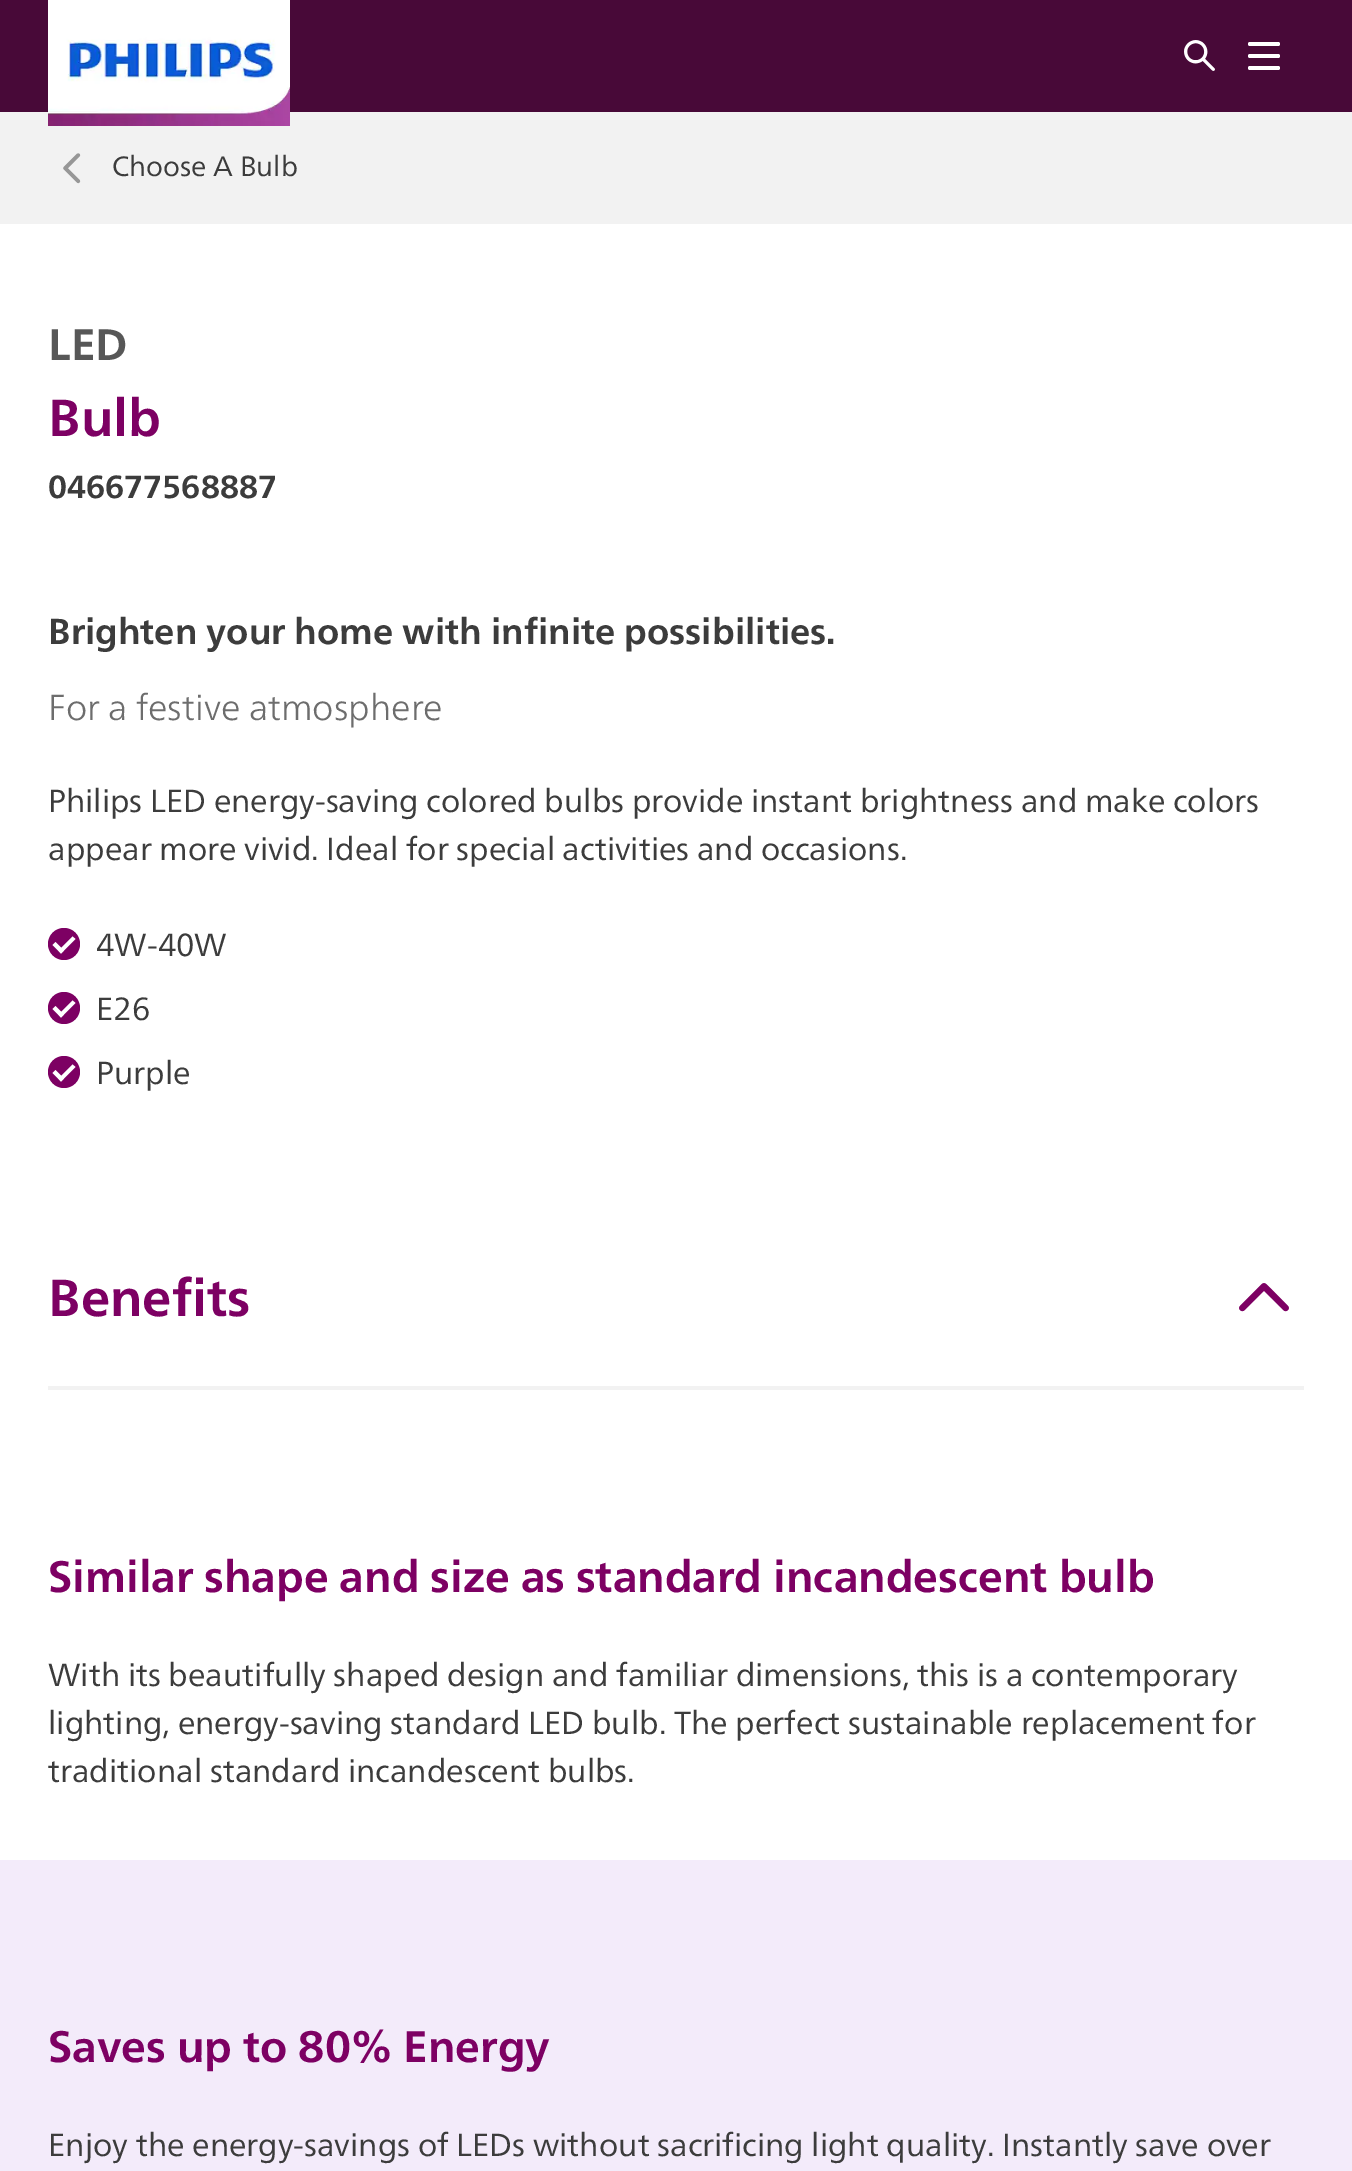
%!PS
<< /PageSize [1352 2171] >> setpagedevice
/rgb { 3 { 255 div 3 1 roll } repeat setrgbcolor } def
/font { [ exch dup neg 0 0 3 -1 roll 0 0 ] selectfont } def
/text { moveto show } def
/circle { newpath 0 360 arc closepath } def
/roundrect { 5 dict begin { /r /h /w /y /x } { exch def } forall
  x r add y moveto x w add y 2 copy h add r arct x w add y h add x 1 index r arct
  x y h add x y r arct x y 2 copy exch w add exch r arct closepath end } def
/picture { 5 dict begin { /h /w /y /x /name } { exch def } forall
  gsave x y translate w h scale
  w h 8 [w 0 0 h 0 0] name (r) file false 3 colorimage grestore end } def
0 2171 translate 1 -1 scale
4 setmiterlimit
255 255 255 rgb
0 0 1352 2171 rectfill
72 9 56 rgb
0 0 1352 112 rectfill
242 242 242 rgb
0 112 1352 112 rectfill
(img_01.rgb) 48 0 242 126 picture
(img_02.rgb) 1184 40 31 31 picture
255 255 255 rgb
1248 42 32 4 2 roundrect fill
1248 54 32 4 2 roundrect fill
1248 66 32 4 2 roundrect fill
(img_03.rgb) 63 153 18 31 picture
125 0 99 rgb
64 944 16 circle fill
255 255 255 rgb
72.5 936.5 moveto 3 2.5 rlineto -14.5 14.5 rlineto -2.5 -3 rlineto closepath fill
55.5 942 moveto 8.5 8.5 rlineto -3 3 rlineto -8.5 -8.5 rlineto closepath fill
125 0 99 rgb
64 1008 16 circle fill
255 255 255 rgb
72.5 1000.5 moveto 3 2.5 rlineto -14.5 14.5 rlineto -2.5 -3 rlineto closepath fill
55.5 1006 moveto 8.5 8.5 rlineto -3 3 rlineto -8.5 -8.5 rlineto closepath fill
125 0 99 rgb
64 1072 16 circle fill
255 255 255 rgb
72.5 1064.5 moveto 3 2.5 rlineto -14.5 14.5 rlineto -2.5 -3 rlineto closepath fill
55.5 1070 moveto 8.5 8.5 rlineto -3 3 rlineto -8.5 -8.5 rlineto closepath fill
242 242 242 rgb
48 1386 1256 4 rectfill
(img_04.rgb) 1239 1283 50 29 picture
243 235 250 rgb
0 1860 1352 311 rectfill
/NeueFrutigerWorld-Regular 28 font
60 60 60 rgb
(Choose A Bulb) 112 176 text
/NeueFrutigerWorld-Bold 44 font
87 87 87 rgb
(LED) 48 360 text
/NeueFrutigerWorld-Bold 52 font
125 0 99 rgb
(Bulb) 48 436 text
/NeueFrutigerWorld-Bold 32 font
60 60 60 rgb
(046677568887) 48 498 text
/NeueFrutigerWorld-Bold 36 font
(Brighten your home with infinite possibilities.) 48 644 text
/NeueFrutigerWorld-Light 36 font
109 109 109 rgb
(For a festive atmosphere) 48 720 text
/NeueFrutigerWorld-Regular 32 font
60 60 60 rgb
(Philips LED energy-saving colored bulbs provide instant brightness and make colors) 48 812 text
(appear more vivid. Ideal for special activities and occasions.) 48 860 text
(4W-40W) 96 956 text
(E26) 96 1020 text
(Purple) 96 1084 text
/NeueFrutigerWorld-Bold 52 font
125 0 99 rgb
(Benefits) 48 1316 text
/NeueFrutigerWorld-Bold 44 font
(Similar shape and size as standard incandescent bulb) 48 1592 text
/NeueFrutigerWorld-Regular 32 font
60 60 60 rgb
(With its beautifully shaped design and familiar dimensions, this is a contemporary) 48 1686 text
(lighting, energy-saving standard LED bulb. The perfect sustainable replacement for) 48 1734 text
(traditional standard incandescent bulbs.) 48 1782 text
/NeueFrutigerWorld-Bold 44 font
125 0 99 rgb
(Saves up to 80% Energy) 48 2062 text
/NeueFrutigerWorld-Regular 32 font
60 60 60 rgb
(Enjoy the energy-savings of LEDs without sacrificing light quality. Instantly save over) 48 2156 text
showpage
